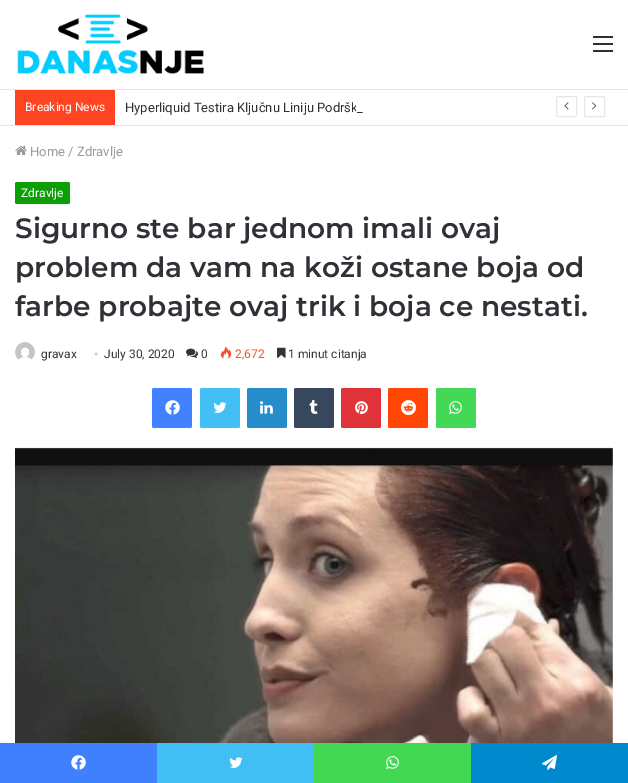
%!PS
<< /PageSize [628 783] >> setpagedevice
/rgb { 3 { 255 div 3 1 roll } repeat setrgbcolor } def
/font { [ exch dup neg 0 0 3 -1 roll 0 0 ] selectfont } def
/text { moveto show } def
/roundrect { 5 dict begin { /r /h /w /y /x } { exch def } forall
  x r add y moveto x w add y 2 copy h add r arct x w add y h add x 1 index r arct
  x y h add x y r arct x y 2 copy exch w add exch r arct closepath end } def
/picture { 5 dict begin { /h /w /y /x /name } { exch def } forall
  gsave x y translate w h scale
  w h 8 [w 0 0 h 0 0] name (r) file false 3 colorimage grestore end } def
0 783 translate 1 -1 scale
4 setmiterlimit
255 255 255 rgb
0 0 628 783 rectfill
(img_01.rgb) 17 14 188 60 picture
44 47 52 rgb
593 43 20 2 rectfill
593 36 20 2 rectfill
593 50 20 2 rectfill
230 230 230 rgb
0 89 628 1 rectfill
0 125 628 1 rectfill
255 68 34 rgb
15 90 100 35 rectfill
230 230 230 rgb
556.5 96.5 20 20 1.5 roundrect stroke
(img_02.rgb) 564 102 5 8 picture
584.5 96.5 20 20 1.5 roundrect stroke
(img_03.rgb) 592 102 5 8 picture
(img_04.rgb) 15 145 12 11 picture
12 159 4 rgb
15 182 55 22 2 roundrect fill
(img_05.rgb) 15 342 20 18 picture
(img_06.rgb) 186 348 12 10 picture
(img_07.rgb) 220 346 12 13 picture
(img_08.rgb) 277 347 9 11 picture
66 129 255 rgb
152 388 40 40 2 roundrect fill
(img_09.rgb) 165 400 15 15 picture
66 192 245 rgb
200 388 40 40 2 roundrect fill
(img_10.rgb) 213 402 14 11 picture
37 141 201 rgb
247 388 40 40 2 roundrect fill
(img_11.rgb) 260 401 13 13 picture
55 72 94 rgb
294 388 40 40 2 roundrect fill
(img_12.rgb) 309 400 9 14 picture
225 51 58 rgb
341 388 40 40 2 roundrect fill
(img_13.rgb) 355 401 13 13 picture
255 71 3 rgb
388 388 40 40 2 roundrect fill
(img_14.rgb) 401 400 15 16 picture
69 216 86 rgb
436 388 40 40 2 roundrect fill
(img_15.rgb) 449 401 13 13 picture
(img_16.rgb) 15 447 598 296 picture
64 128 255 rgb
0 743 157 40 rectfill
(img_17.rgb) 71 755 15 15 picture
64 191 245 rgb
157 743 157 40 rectfill
(img_18.rgb) 229 757 14 11 picture
67 216 84 rgb
314 743 157 40 rectfill
(img_19.rgb) 386 756 13 13 picture
0 136 204 rgb
471 743 157 40 rectfill
(img_20.rgb) 542 755 15 15 picture
/Roboto-Regular 12 font
255 255 255 rgb
(Breaking News) 25 111 text
/Roboto-Regular 13 font
46 49 54 rgb
(Hyperliquid Testira Ključnu Liniju Podršk) 125 112 text
255 255 255 rgb
356 105 2 7 rectfill
46 49 54 rgb
(_) 357 112 text
154 154 154 rgb
(Home / Zdravlje) 30 156 text
/Roboto-Regular 12 font
255 255 255 rgb
(Zdravlje) 21 197 text
/Montserrat-SemiBold 28 font
46 49 54 rgb
(Sigurno ste bar jednom imali ovaj) 15 238 text
(problem da vam na koži ostane boja od) 15 277 text
(farbe probajte ovaj trik i boja ce nestati.) 15 316 text
/Roboto-Regular 12 font
53 53 53 rgb
(gravax) 41 358 text
/LiberationSerif-Regular 12 font
205 205 205 rgb
(•) 94 358 text
/Roboto-Regular 12 font
53 53 53 rgb
(July 30, 2020) 104 358 text
(0) 201 358 text
243 82 44 rgb
(2,672) 235 358 text
53 53 53 rgb
(1 minut citanja) 288 358 text
showpage
